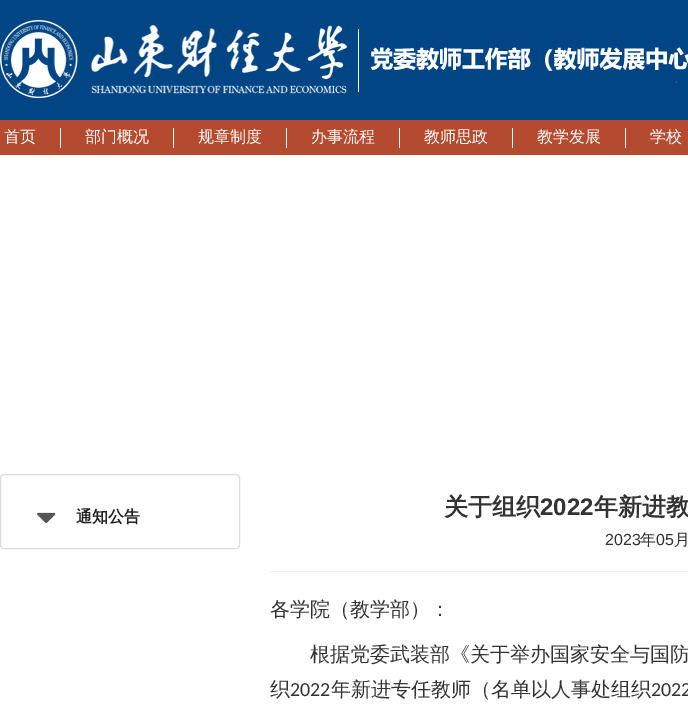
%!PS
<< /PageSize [688 707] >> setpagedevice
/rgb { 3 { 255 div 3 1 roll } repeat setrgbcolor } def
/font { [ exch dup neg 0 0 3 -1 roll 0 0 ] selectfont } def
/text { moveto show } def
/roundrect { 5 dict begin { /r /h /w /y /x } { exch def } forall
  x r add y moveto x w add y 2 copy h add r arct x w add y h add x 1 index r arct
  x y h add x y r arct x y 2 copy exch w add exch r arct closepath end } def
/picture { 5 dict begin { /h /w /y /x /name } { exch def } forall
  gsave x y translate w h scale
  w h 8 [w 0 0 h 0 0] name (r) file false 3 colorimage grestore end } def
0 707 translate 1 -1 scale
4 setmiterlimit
255 255 255 rgb
0 0 688 707 rectfill
2 69 133 rgb
0 0 688 120 rectfill
(img_01.rgb) 0 20 688 78 picture
180 75 47 rgb
0 120 688 35 rectfill
255 255 255 rgb
60 128 1 20 rectfill
173 128 1 20 rectfill
286 128 1 20 rectfill
399 128 1 20 rectfill
512 128 1 20 rectfill
625 128 1 20 rectfill
221 221 221 rgb
0.5 474.5 239 74 3.5 roundrect stroke
(img_02.rgb) 37 512 19 12 picture
238 238 238 rgb
270 571 418 1 rectfill
/WenQuanYiZenHei-Medium 16 font
255 255 255 rgb
(首页) 4 142 text
(部门概况) 85 142 text
(规章制度) 198 142 text
(办事流程) 311 142 text
(教师思政) 424 142 text
(教学发展) 537 142 text
(学校) 650 142 text
/WenQuanYiZenHei-Bold 16 font
34 34 34 rgb
(通知公告) 76 522 text
/WenQuanYiZenHei-Bold 24 font
51 51 51 rgb
(关于组织) 444 515 text
/LiberationSans-Bold 24 font
(2022) 540 515 text
/WenQuanYiZenHei-Bold 24 font
(年新进教) 594 515 text
/LiberationSans-Regular 16 font
(2023) 605 545 text
/WenQuanYiZenHei-Medium 16 font
(年) 640 545 text
/LiberationSans-Regular 16 font
(05) 656 545 text
/WenQuanYiZenHei-Medium 16 font
(月) 674 545 text
/WenQuanYiZenHei-Medium 20 font
(各学院（教学部）：) 270 616 text
(根据党委武装部《关于举办国家安全与国防) 310 661 text
(织) 270 696 text
/Carlito-Regular 20 font
(2022) 290 696 text
/WenQuanYiZenHei-Medium 20 font
(年新进专任教师（名单以人事处组织) 331 696 text
/Carlito-Regular 20 font
(2022) 651 696 text
showpage
